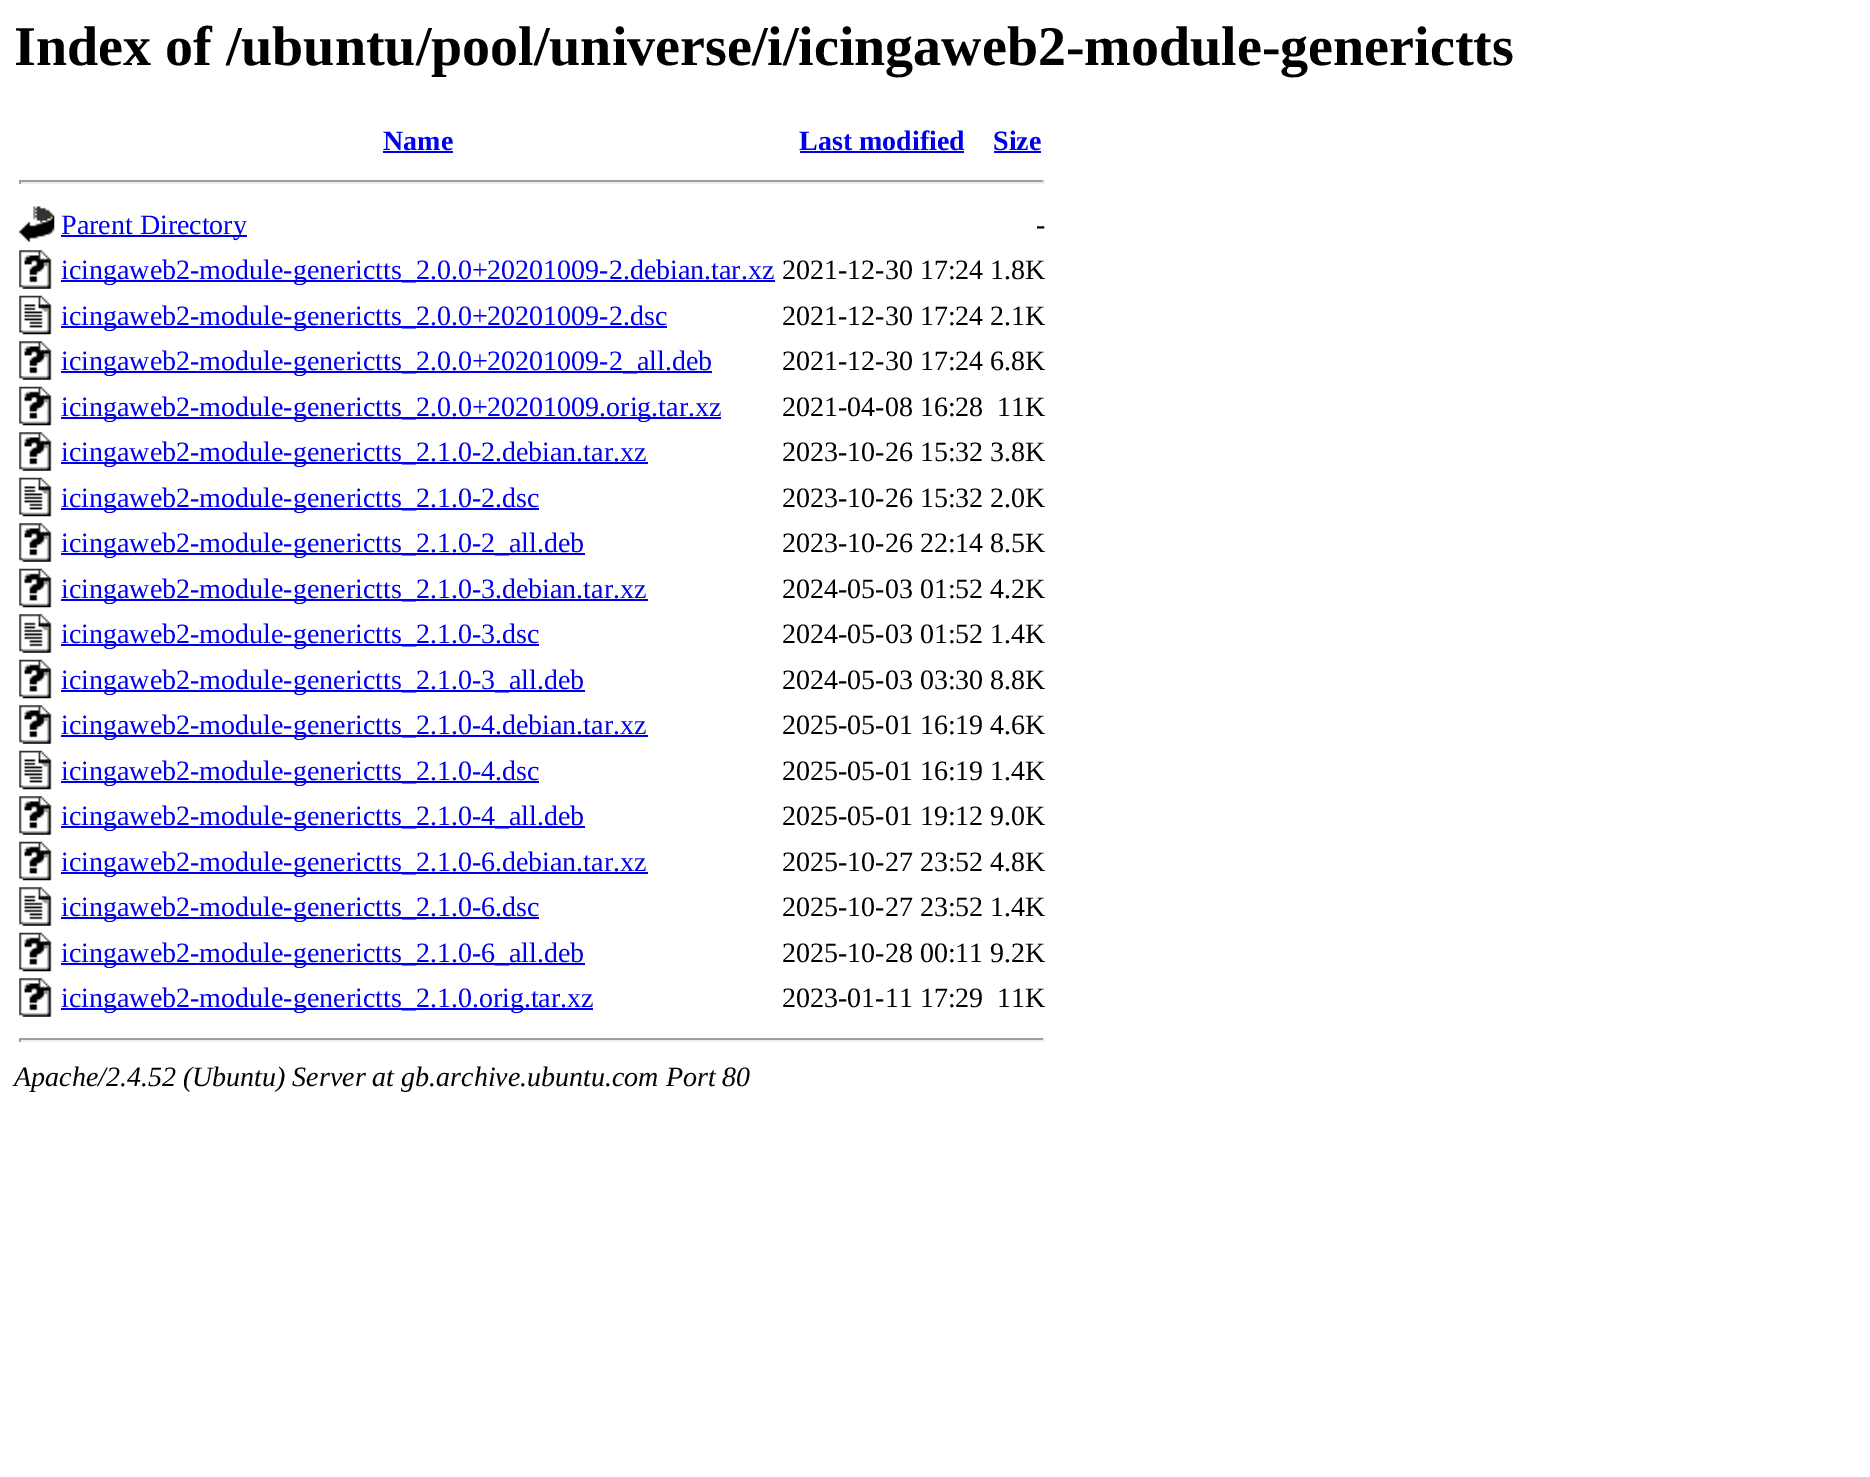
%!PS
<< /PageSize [1870 1477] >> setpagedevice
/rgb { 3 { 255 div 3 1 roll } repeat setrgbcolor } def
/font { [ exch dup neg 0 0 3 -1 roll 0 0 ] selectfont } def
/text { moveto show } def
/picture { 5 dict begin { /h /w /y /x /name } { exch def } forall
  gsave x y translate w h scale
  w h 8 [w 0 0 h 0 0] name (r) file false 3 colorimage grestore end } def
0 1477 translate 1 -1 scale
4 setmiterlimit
255 255 255 rgb
0 0 1870 1477 rectfill
0 0 238 rgb
383 151 70 2 rectfill
800 151 164 2 rectfill
994 151 47 2 rectfill
159 159 159 rgb
19 180 1026 2 rectfill
238 238 238 rgb
1043 180 2 4 rectfill
19 182 1026 2 rectfill
159 159 159 rgb
19 180 2 4 rectfill
(img_01.rgb) 19 206 36 36 picture
0 0 238 rgb
61 235 186 2 rectfill
(img_02.rgb) 19 250 33 39 picture
61 280 714 2 rectfill
(img_03.rgb) 19 295 33 40 picture
61 326 606 2 rectfill
(img_02.rgb) 19 341 33 39 picture
61 371 651 2 rectfill
(img_04.rgb) 19 386 33 40 picture
61 417 660 2 rectfill
(img_02.rgb) 19 432 33 39 picture
61 462 587 2 rectfill
(img_03.rgb) 19 477 33 40 picture
61 508 478 2 rectfill
(img_02.rgb) 19 523 33 39 picture
61 553 524 2 rectfill
(img_04.rgb) 19 568 33 40 picture
61 599 587 2 rectfill
(img_05.rgb) 19 614 33 39 picture
61 644 478 2 rectfill
(img_04.rgb) 19 659 33 40 picture
61 690 524 2 rectfill
(img_02.rgb) 19 705 33 39 picture
61 735 587 2 rectfill
(img_03.rgb) 19 750 33 40 picture
61 781 478 2 rectfill
(img_02.rgb) 19 796 33 39 picture
61 826 524 2 rectfill
(img_04.rgb) 19 841 33 40 picture
61 872 587 2 rectfill
(img_05.rgb) 19 887 33 39 picture
61 917 478 2 rectfill
(img_04.rgb) 19 932 33 40 picture
61 963 524 2 rectfill
(img_02.rgb) 19 978 33 39 picture
61 1008 532 2 rectfill
159 159 159 rgb
19 1038 1026 2 rectfill
238 238 238 rgb
1043 1038 2 4 rectfill
19 1040 1026 2 rectfill
159 159 159 rgb
19 1038 2 4 rectfill
/LiberationSerif-Bold 56 font
0 0 0 rgb
(Index of /ubuntu/pool/universe/i/icingaweb2-module-generictts) 14 65 text
/LiberationSerif-Bold 28 font
0 0 238 rgb
(Name) 383 150 text
(Last modified) 799 150 text
(Size) 993 150 text
/LiberationSerif-Regular 28 font
(Parent Directory) 61 234 text
0 0 0 rgb
(-) 1036 234 text
0 0 238 rgb
(icingaweb2-module-generictts_2.0.0+20201009-2.debian.tar.xz) 61 279 text
0 0 0 rgb
(2021-12-30 17:24 1.8K) 782 279 text
0 0 238 rgb
(icingaweb2-module-generictts_2.0.0+20201009-2.dsc) 61 325 text
0 0 0 rgb
(2021-12-30 17:24 2.1K) 782 325 text
0 0 238 rgb
(icingaweb2-module-generictts_2.0.0+20201009-2_all.deb) 61 370 text
0 0 0 rgb
(2021-12-30 17:24 6.8K) 782 370 text
0 0 238 rgb
(icingaweb2-module-generictts_2.0.0+20201009.orig.tar.xz) 61 416 text
0 0 0 rgb
(2021-04-08 16:28) 782 416 text
(11K) 997 416 text
0 0 238 rgb
(icingaweb2-module-generictts_2.1.0-2.debian.tar.xz) 61 461 text
0 0 0 rgb
(2023-10-26 15:32 3.8K) 782 461 text
0 0 238 rgb
(icingaweb2-module-generictts_2.1.0-2.dsc) 61 507 text
0 0 0 rgb
(2023-10-26 15:32 2.0K) 782 507 text
0 0 238 rgb
(icingaweb2-module-generictts_2.1.0-2_all.deb) 61 552 text
0 0 0 rgb
(2023-10-26 22:14 8.5K) 782 552 text
0 0 238 rgb
(icingaweb2-module-generictts_2.1.0-3.debian.tar.xz) 61 598 text
0 0 0 rgb
(2024-05-03 01:52 4.2K) 782 598 text
0 0 238 rgb
(icingaweb2-module-generictts_2.1.0-3.dsc) 61 643 text
0 0 0 rgb
(2024-05-03 01:52 1.4K) 782 643 text
0 0 238 rgb
(icingaweb2-module-generictts_2.1.0-3_all.deb) 61 689 text
0 0 0 rgb
(2024-05-03 03:30 8.8K) 782 689 text
0 0 238 rgb
(icingaweb2-module-generictts_2.1.0-4.debian.tar.xz) 61 734 text
0 0 0 rgb
(2025-05-01 16:19 4.6K) 782 734 text
0 0 238 rgb
(icingaweb2-module-generictts_2.1.0-4.dsc) 61 780 text
0 0 0 rgb
(2025-05-01 16:19 1.4K) 782 780 text
0 0 238 rgb
(icingaweb2-module-generictts_2.1.0-4_all.deb) 61 825 text
0 0 0 rgb
(2025-05-01 19:12 9.0K) 782 825 text
0 0 238 rgb
(icingaweb2-module-generictts_2.1.0-6.debian.tar.xz) 61 871 text
0 0 0 rgb
(2025-10-27 23:52 4.8K) 782 871 text
0 0 238 rgb
(icingaweb2-module-generictts_2.1.0-6.dsc) 61 916 text
0 0 0 rgb
(2025-10-27 23:52 1.4K) 782 916 text
0 0 238 rgb
(icingaweb2-module-generictts_2.1.0-6_all.deb) 61 962 text
0 0 0 rgb
(2025-10-28 00:11 9.2K) 782 962 text
0 0 238 rgb
(icingaweb2-module-generictts_2.1.0.orig.tar.xz) 61 1007 text
0 0 0 rgb
(2023-01-11 17:29) 782 1007 text
(11K) 997 1007 text
/LiberationSerif-Italic 28 font
(Apache/2.4.52 \(Ubuntu\) Server at gb.archive.ubuntu.com Port 80) 14 1086 text
showpage
